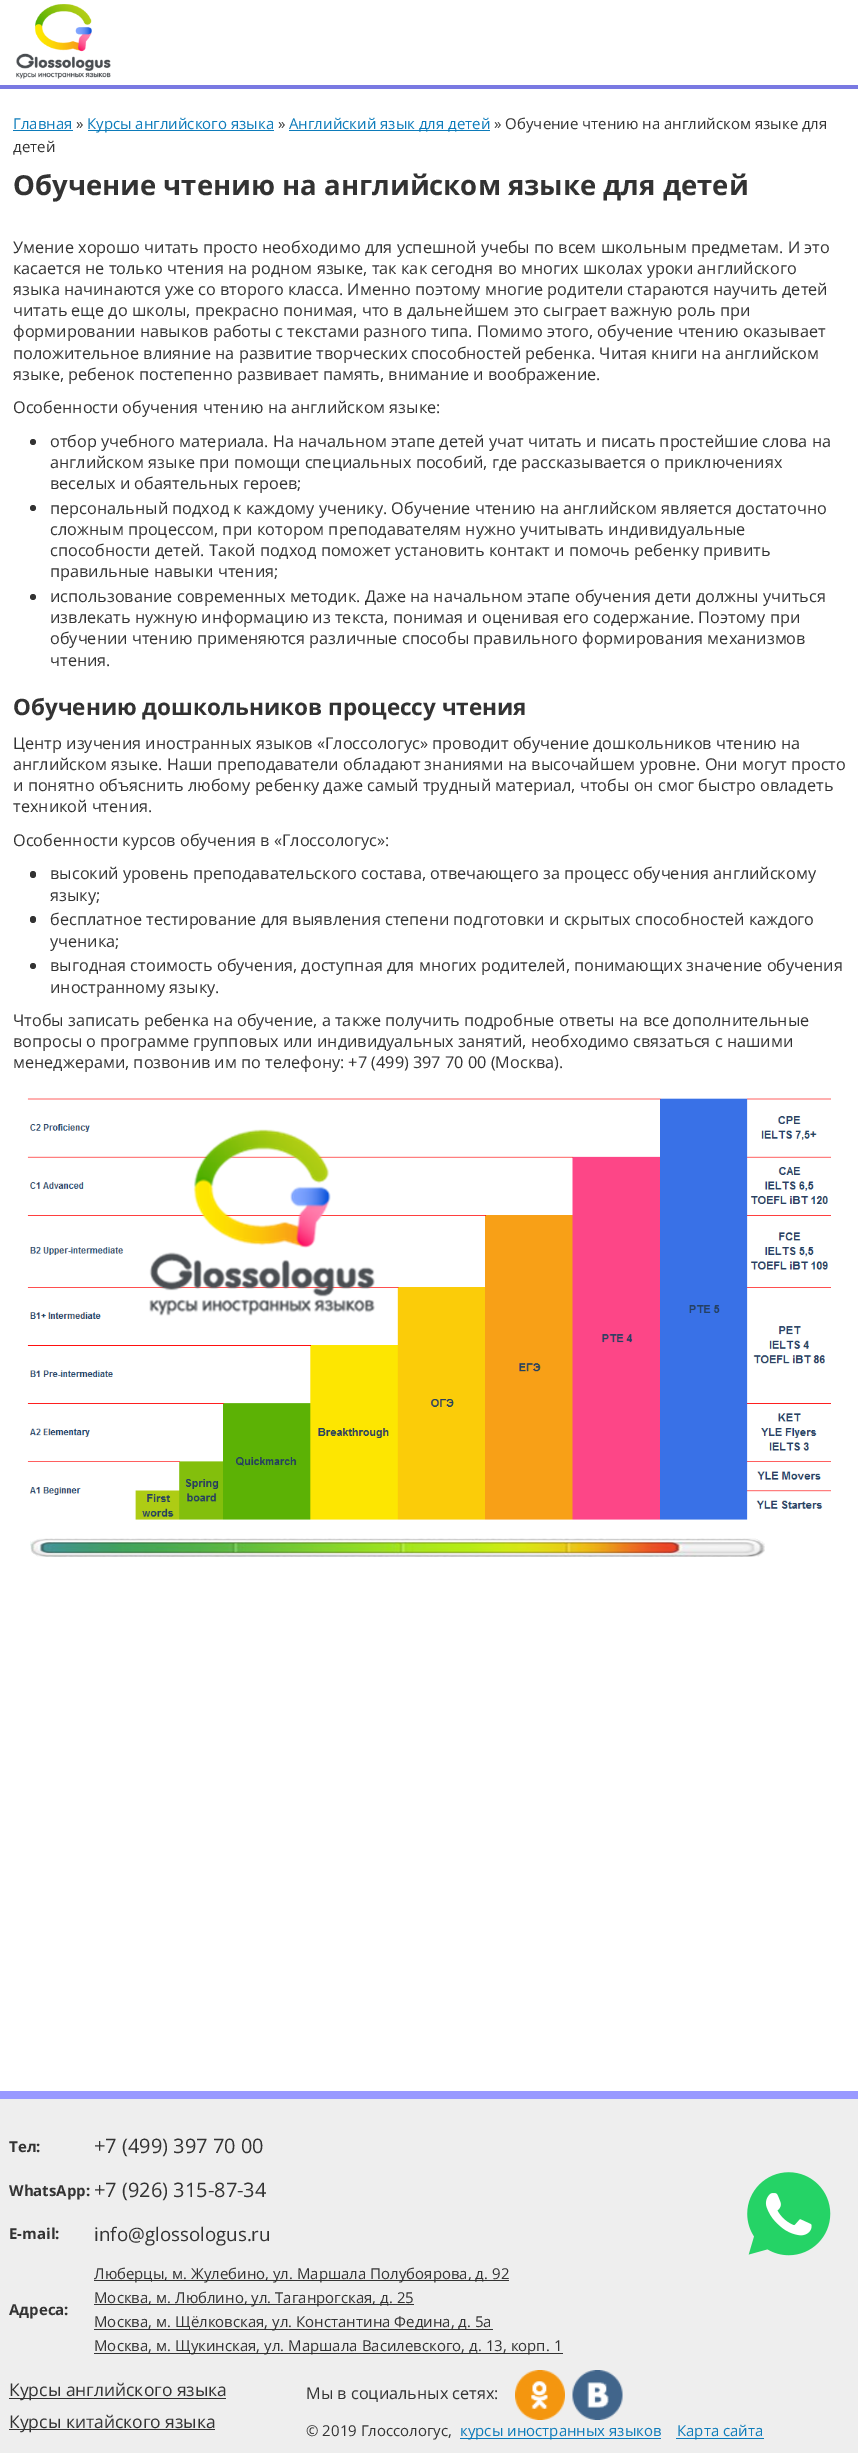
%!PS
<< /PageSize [858 2453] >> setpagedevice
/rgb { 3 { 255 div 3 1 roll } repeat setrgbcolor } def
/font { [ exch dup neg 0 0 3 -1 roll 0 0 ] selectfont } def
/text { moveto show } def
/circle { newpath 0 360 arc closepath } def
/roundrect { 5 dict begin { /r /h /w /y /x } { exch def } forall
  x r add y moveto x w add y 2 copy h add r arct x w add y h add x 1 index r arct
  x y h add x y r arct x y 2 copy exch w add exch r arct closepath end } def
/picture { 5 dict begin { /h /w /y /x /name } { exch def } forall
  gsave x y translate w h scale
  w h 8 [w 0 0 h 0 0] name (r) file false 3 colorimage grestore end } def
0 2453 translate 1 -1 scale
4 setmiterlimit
255 255 255 rgb
0 0 858 2453 rectfill
121 121 226 rgb
0 85 858 4 rectfill
(img_01.rgb) 16 4 95 75 picture
12 123 186 rgb
13 130 60 1 rectfill
88 130 186 1 rectfill
289 130 201 1 rectfill
51 51 51 rgb
33 442 3 circle fill
33 508 3 circle fill
33 597 3 circle fill
30 871 6 7 3 roundrect fill
30 916 6 7 3 roundrect fill
33 966 3 circle fill
(img_02.rgb) 27 1098 804 459 picture
238 238 238 rgb
0 2099 858 354 rectfill
153 153 255 rgb
0 2091 858 8 rectfill
51 51 51 rgb
94 2280 415 1 rectfill
94 2304 320 1 rectfill
94 2329 399 1 rectfill
94 2353 469 1 rectfill
(img_03.rgb) 747 2172 84 84 picture
9 2398 217 1 rectfill
9 2429 206 1 rectfill
(img_04.rgb) 515 2370 50 50 picture
(img_05.rgb) 572 2370 51 50 picture
12 123 186 rgb
460 2438 201 1 rectfill
676 2438 88 1 rectfill
/OpenSans-Regular 15 font
(Главная) 13 129 text
51 51 51 rgb
(») 76 129 text
12 123 186 rgb
(Курсы английского языка) 87 129 text
51 51 51 rgb
(») 278 129 text
12 123 186 rgb
(Английский язык для детей) 289 129 text
51 51 51 rgb
(» Обучение чтению на английском языке для) 494 129 text
(детей) 13 152 text
/OpenSans-Bold 27.5 font
(Обучение чтению на английском языке для детей) 13 195 text
/OpenSans-Regular 16.25 font
(Умение хорошо читать просто необходимо для успешной учебы по всем школьным предметам. И это) 13 253 text
(касается не только чтения на родном языке, так как сегодня во многих школах уроки английского) 13 274 text
(языка начинаются уже со второго класса. Именно поэтому многие родители стараются научить детей) 13 295 text
(читать еще до школы, прекрасно понимая, что в дальнейшем это сыграет важную роль при) 13 316 text
(формировании навыков работы с текстами разного типа. Помимо этого, обучение чтению оказывает) 13 337 text
(положительное влияние на развитие творческих способностей ребенка. Читая книги на английском) 13 359 text
(языке, ребенок постепенно развивает память, внимание и воображение.) 13 380 text
(Особенности обучения чтению на английском языке:) 13 413 text
(отбор учебного материала. На начальном этапе детей учат читать и писать простейшие слова на) 50 447 text
(английском языке при помощи специальных пособий, где рассказывается о приключениях) 50 468 text
(веселых и обаятельных героев;) 50 489 text
(персональный подход к каждому ученику. Обучение чтению на английском является достаточно) 50 514 text
(сложным процессом, при котором преподавателям нужно учитывать индивидуальные) 50 535 text
(способности детей. Такой подход поможет установить контакт и помочь ребенку привить) 50 556 text
(правильные навыки чтения;) 50 577 text
(использование современных методик. Даже на начальном этапе обучения дети должны учиться) 50 602 text
(извлекать нужную информацию из текста, понимая и оценивая его содержание. Поэтому при) 50 623 text
(обучении чтению применяются различные способы правильного формирования механизмов) 50 644 text
(чтения.) 50 666 text
/OpenSans-Bold 22.5 font
(Обучению дошкольников процессу чтения) 13 715 text
/OpenSans-Regular 16.25 font
(Центр изучения иностранных языков «Глоссологус» проводит обучение дошкольников чтению на) 13 749 text
(английском языке. Наши преподаватели обладают знаниями на высочайшем уровне. Они могут просто) 13 770 text
(и понятно объяснить любому ребенку даже самый трудный материал, чтобы он смог быстро овладеть) 13 791 text
(техникой чтения.) 13 812 text
(Особенности курсов обучения в «Глоссологус»:) 13 846 text
(высокий уровень преподавательского состава, отвечающего за процесс обучения английскому) 50 879 text
(языку;) 50 901 text
(бесплатное тестирование для выявления степени подготовки и скрытых способностей каждого) 50 925 text
(ученика;) 50 947 text
(выгодная стоимость обучения, доступная для многих родителей, понимающих значение обучения) 50 971 text
(иностранному языку.) 50 993 text
(Чтобы записать ребенка на обучение, а также получить подробные ответы на все дополнительные) 13 1026 text
(вопросы о программе групповых или индивидуальных занятий, необходимо связаться с нашими) 13 1047 text
(менеджерами, позвонив им по телефону: +7 \(499\) 397 70 00 \(Москва\).) 13 1068 text
/OpenSans-Bold 15 font
(Тел:) 9 2152 text
/OpenSans-Regular 20 font
(+7 \(499\) 397 70 00) 94 2153 text
/OpenSans-Bold 15 font
(WhatsApp:) 9 2196 text
/OpenSans-Regular 20 font
(+7 \(926\) 315-87-34) 94 2197 text
/OpenSans-Bold 15 font
(E-mail:) 9 2239 text
/OpenSans-Regular 18.75 font
(info@glossologus.ru) 94 2241 text
/OpenSans-Bold 15 font
(Адреса:) 9 2315 text
/OpenSans-Regular 15 font
(Люберцы, м. Жулебино, ул. Маршала Полубоярова, д. 92) 94 2279 text
(Москва, м. Люблино, ул. Таганрогская, д. 25) 94 2303 text
(Москва, м. Щёлковская, ул. Константина Федина, д. 5а) 94 2327 text
(Москва, м. Щукинская, ул. Маршала Василевского, д. 13, корп. 1) 94 2351 text
/OpenSans-Regular 17.5 font
(Курсы английского языка) 9 2396 text
(Курсы китайского языка) 9 2428 text
/OpenSans-Regular 16.25 font
(Мы в социальных сетях:) 306 2399 text
/OpenSans-Regular 15 font
(© 2019 Глоссологуc,) 306 2436 text
12 123 186 rgb
(курсы иностранных языков) 460 2436 text
(Карта сайта) 677 2436 text
showpage
